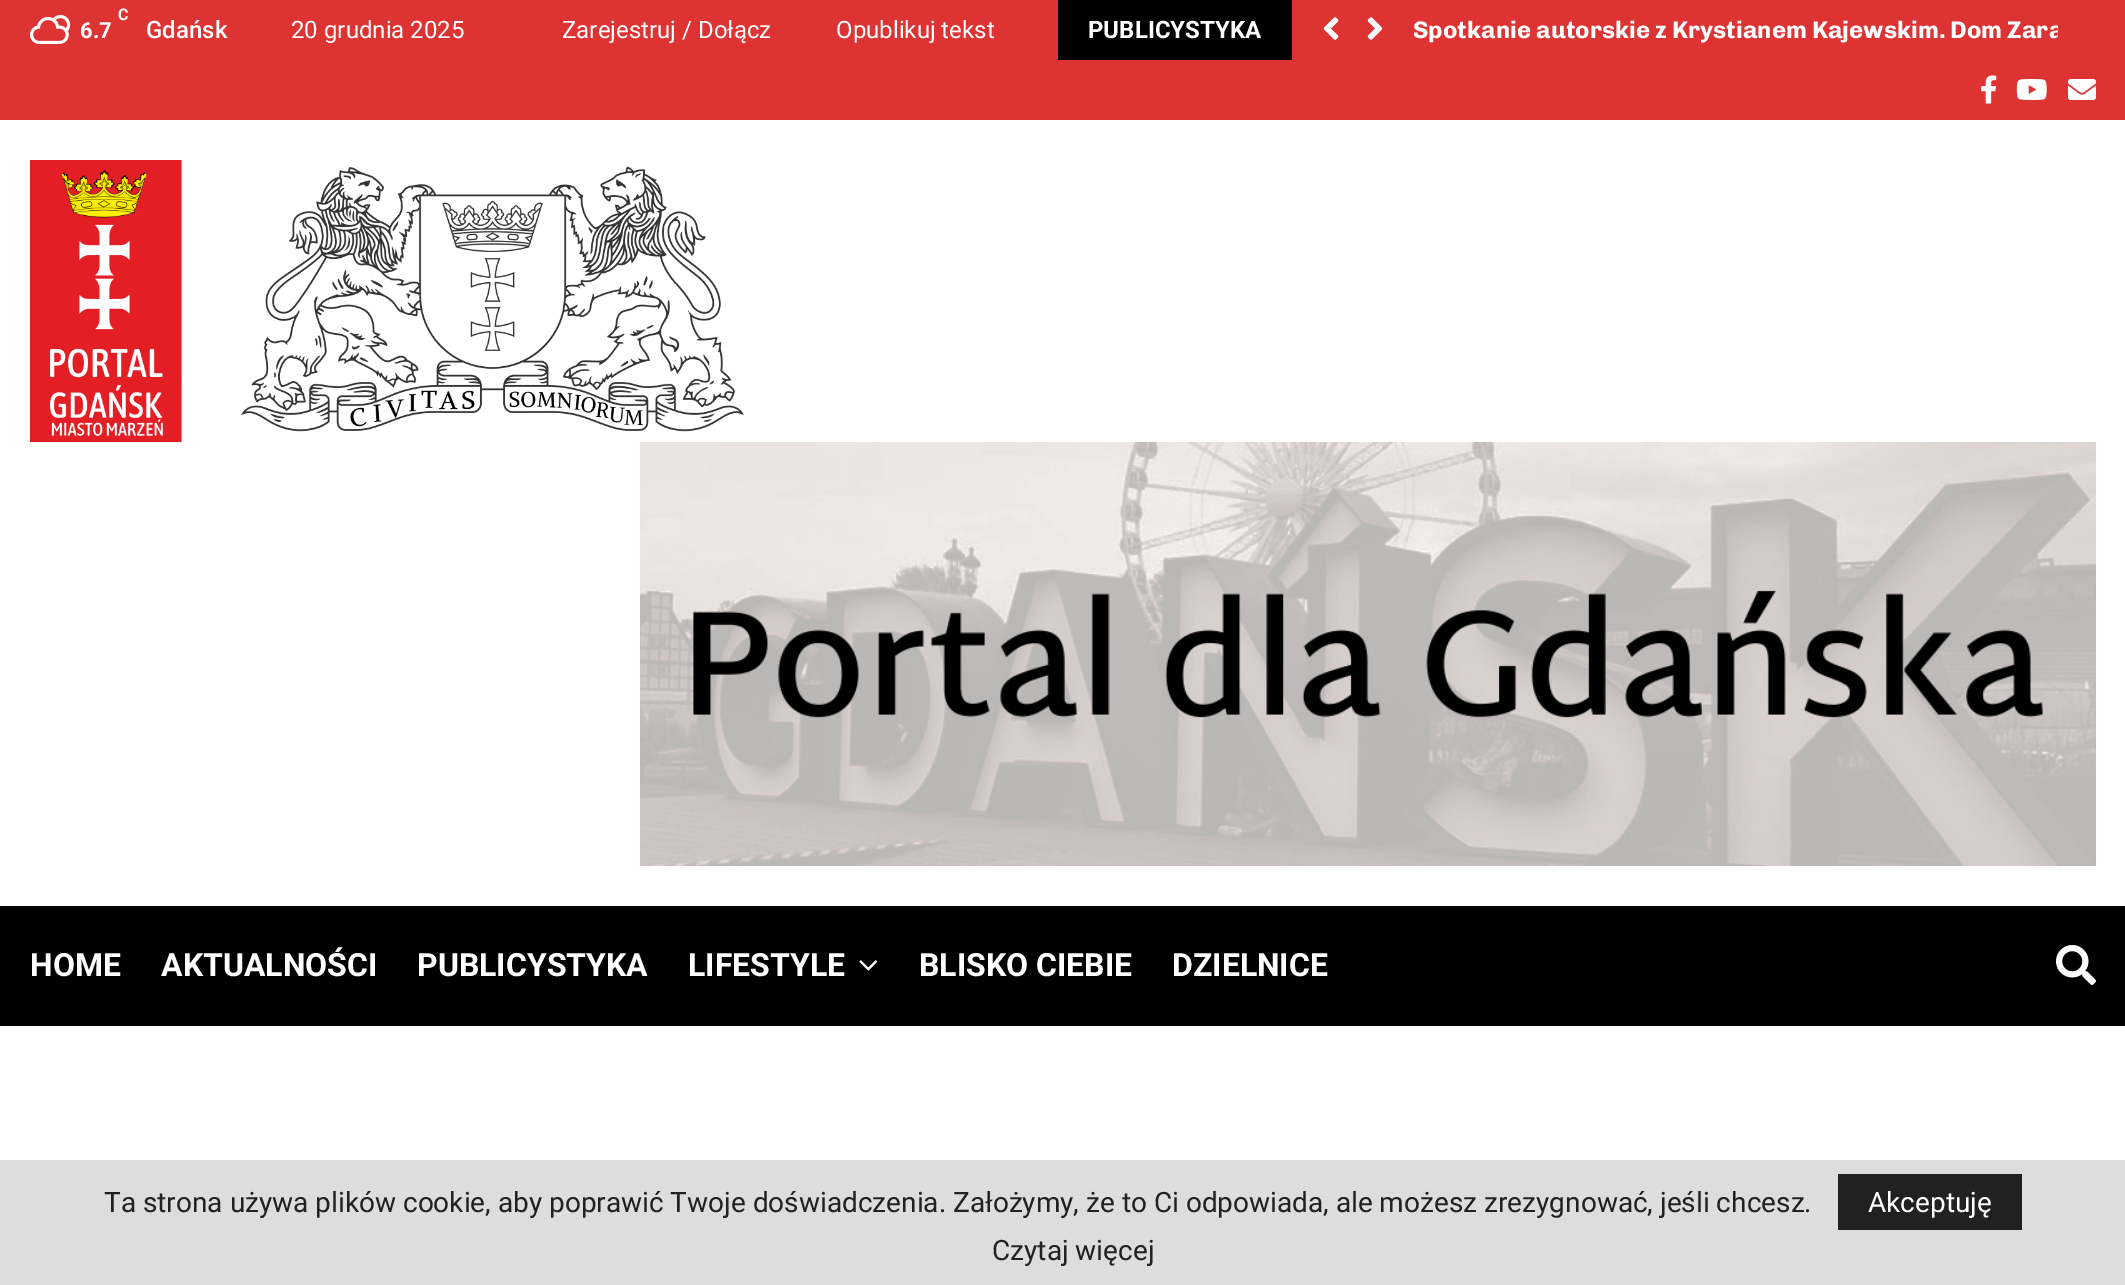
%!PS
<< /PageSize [2125 1285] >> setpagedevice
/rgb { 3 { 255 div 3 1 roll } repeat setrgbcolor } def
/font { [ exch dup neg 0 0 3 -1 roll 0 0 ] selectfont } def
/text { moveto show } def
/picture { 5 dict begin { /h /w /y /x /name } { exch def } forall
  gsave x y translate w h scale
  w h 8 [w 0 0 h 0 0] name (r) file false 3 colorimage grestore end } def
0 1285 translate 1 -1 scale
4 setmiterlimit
255 255 255 rgb
0 0 2125 1285 rectfill
221 51 51 rgb
0 0 2125 120 rectfill
(img_01.rgb) 30 14 41 30 picture
0 0 0 rgb
1058 0 234 60 rectfill
(img_02.rgb) 1323 17 16 23 picture
(img_03.rgb) 1367 17 16 23 picture
(img_04.rgb) 1981 75 16 29 picture
(img_05.rgb) 2016 79 31 21 picture
(img_06.rgb) 2068 79 28 21 picture
(img_07.rgb) 30 160 750 282 picture
(img_08.rgb) 640 442 1456 424 picture
0 906 2125 120 rectfill
(img_09.rgb) 859 960 19 11 picture
(img_10.rgb) 2056 945 40 40 picture
221 221 221 rgb
0 1160 2125 125 rectfill
33 33 33 rgb
1838 1174 184 56 rectfill
/Roboto-Bold 16 font
255 255 255 rgb
(C) 118 20 text
/Roboto-Bold 22 font
(6.7) 80 38 text
/Roboto-Medium 24 font
(Gdańsk) 146 38 text
/Roboto-Regular 24 font
(20 grudnia 2025) 291 38 text
(Zarejestruj / Dołącz) 562 38 text
(Opublikuj tekst) 836 38 text
/Roboto-Bold 24 font
(PUBLICYSTYKA) 1088 38 text
gsave
1414 0 644 60 rectclip
/Chivo-Bold 24 font
(Spotkanie autorskie z Krystianem Kajewskim. Dom Zara) 1413 38 text
grestore
/Roboto-Bold 32 font
(HOME) 30 976 text
(AKTUALNOŚCI) 161 976 text
(PUBLICYSTYKA) 417 976 text
(LIFESTYLE) 688 976 text
(BLISKO CIEBIE) 919 976 text
(DZIELNICE) 1172 976 text
/Roboto-Regular 28 font
33 33 33 rgb
(Ta strona używa plików cookie, aby poprawić Twoje doświadczenia. Założymy, że to Ci odpowiada, ale możesz zrezygnować, jeśli chcesz.) 104 1212 text
255 255 255 rgb
(Akceptuję) 1868 1212 text
33 33 33 rgb
(Czytaj więcej) 992 1260 text
showpage
